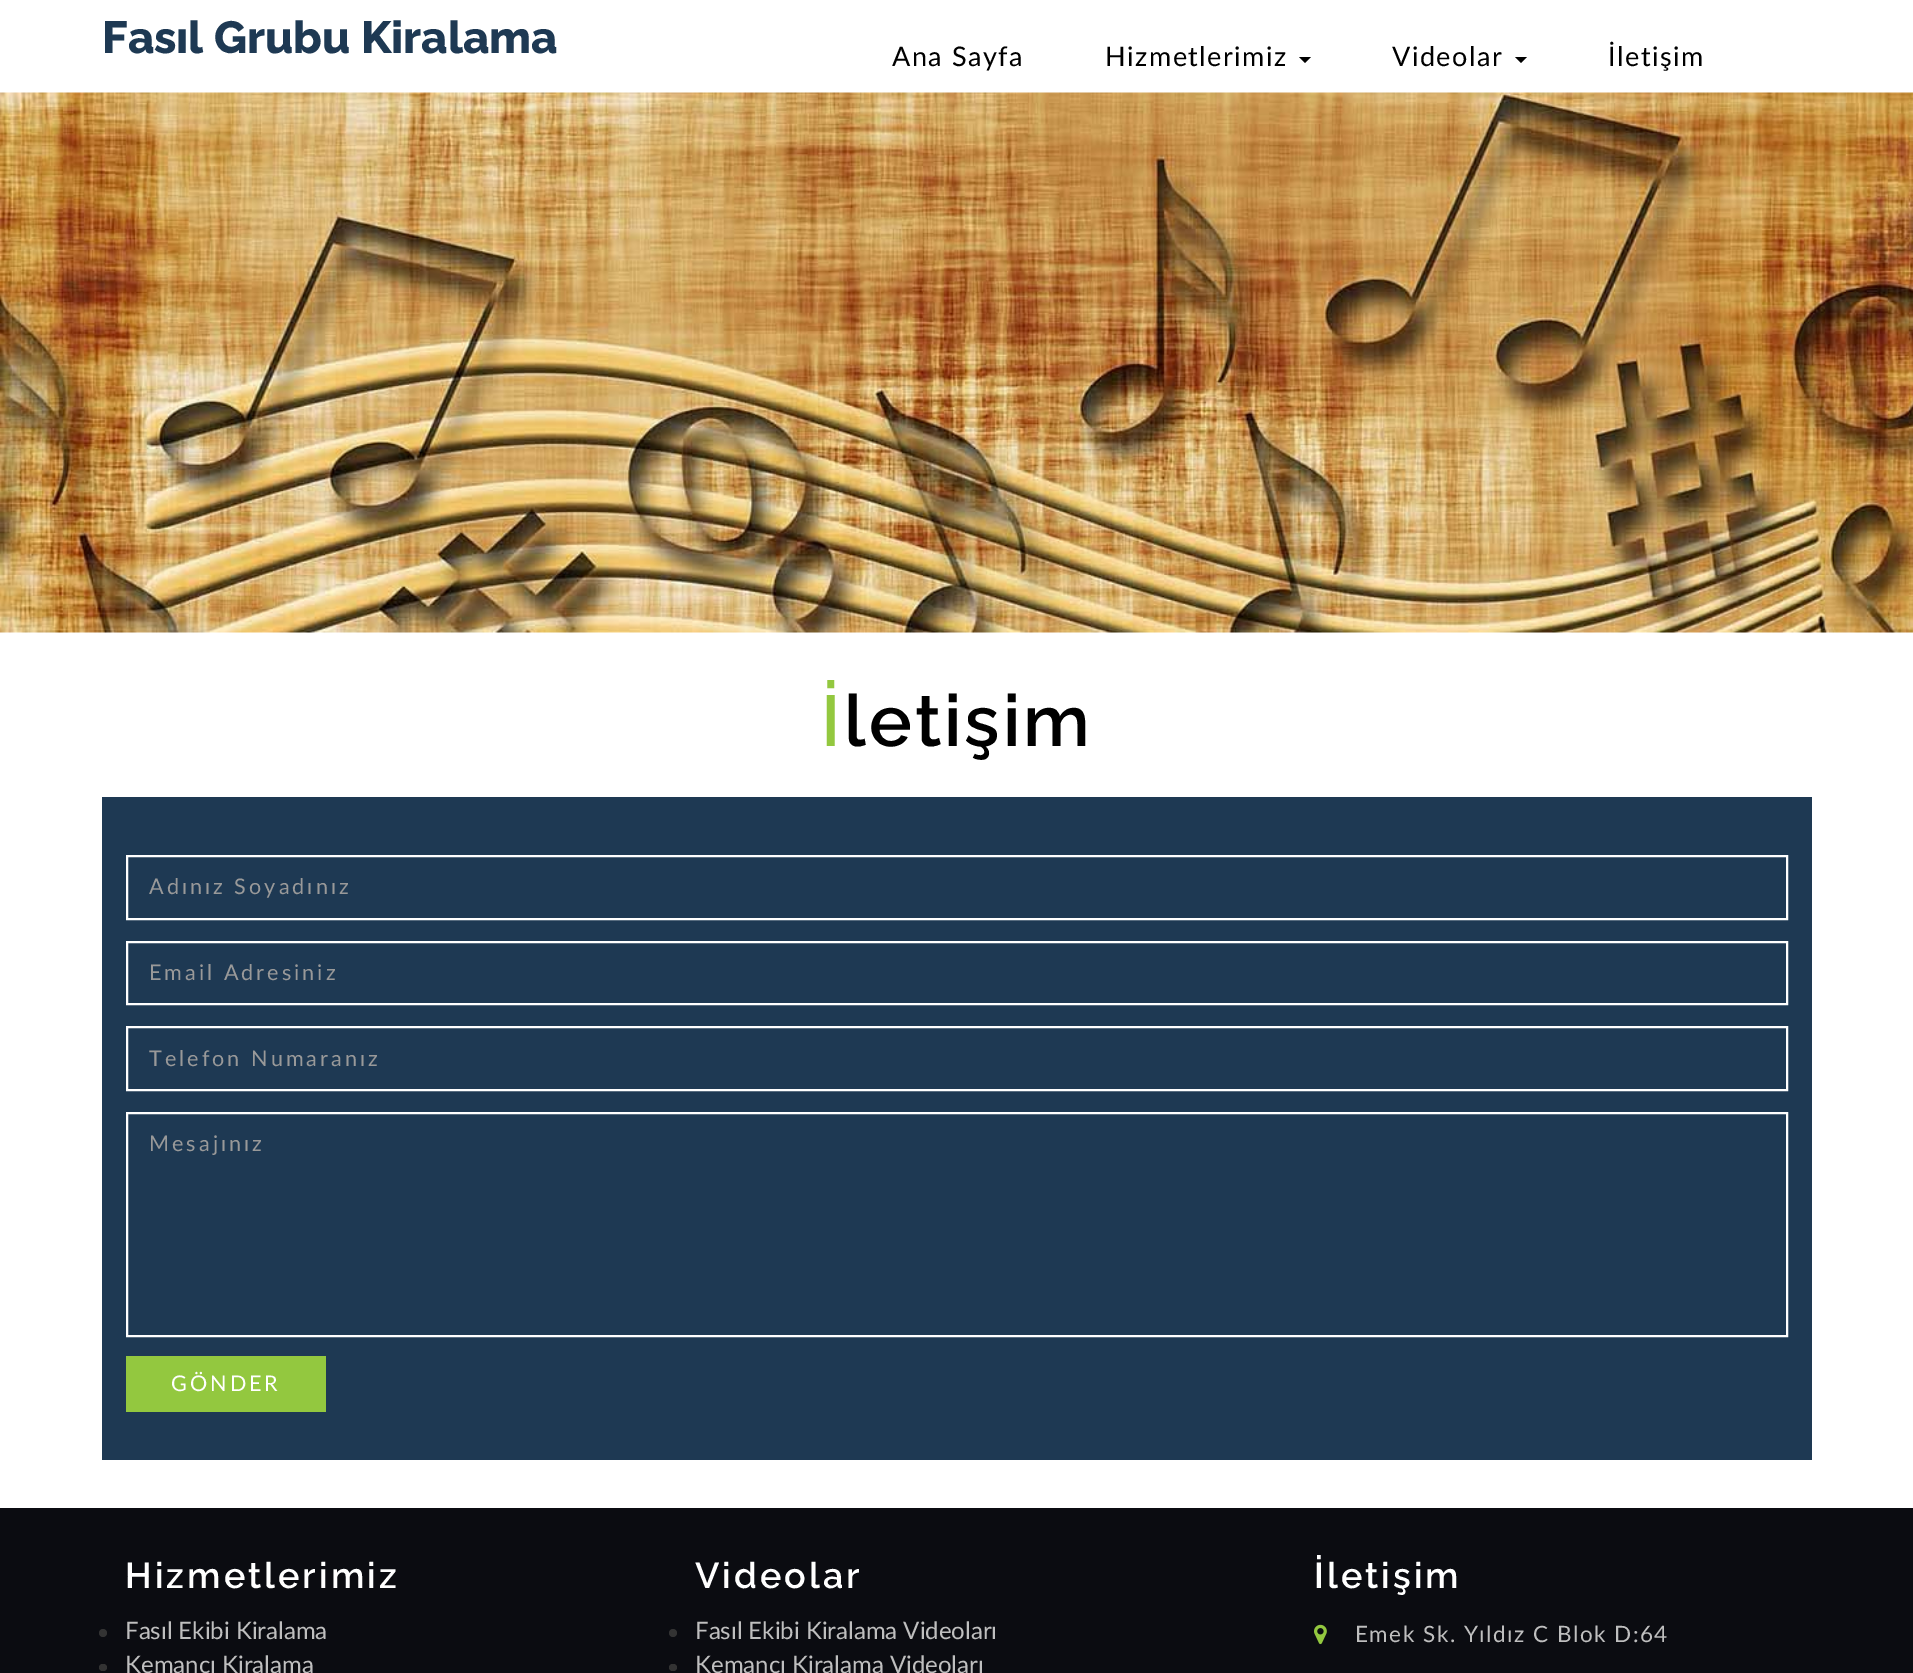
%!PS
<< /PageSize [1913 1673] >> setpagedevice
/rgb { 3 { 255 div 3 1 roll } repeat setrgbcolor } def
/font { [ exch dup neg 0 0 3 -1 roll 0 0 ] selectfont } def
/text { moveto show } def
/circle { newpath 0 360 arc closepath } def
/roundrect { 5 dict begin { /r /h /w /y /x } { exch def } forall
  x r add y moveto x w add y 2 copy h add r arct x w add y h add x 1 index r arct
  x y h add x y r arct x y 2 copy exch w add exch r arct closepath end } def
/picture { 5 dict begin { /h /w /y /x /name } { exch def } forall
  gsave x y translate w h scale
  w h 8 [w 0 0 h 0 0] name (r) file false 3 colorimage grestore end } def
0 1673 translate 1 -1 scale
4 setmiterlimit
255 255 255 rgb
0 0 1913 1673 rectfill
0 0 0 rgb
1299 57 moveto 12 0 rlineto -6 6 rlineto closepath fill
1515 57 moveto 12 0 rlineto -6 6 rlineto closepath fill
(img_01.rgb) 0 92 1913 541 picture
30 57 83 rgb
102 797 1710 663 rectfill
255 255 255 rgb
2 setlinewidth
127 856 1660 63 rectstroke
127 942 1660 62 rectstroke
127 1027 1660 63 rectstroke
127 1113 1660 223 rectstroke
147 200 63 rgb
126 1356 200 56 rectfill
11 12 17 rgb
0 1508 1913 165 rectfill
51 51 51 rgb
103 1633 4 circle fill
99 1664 8 7 3.5 roundrect fill
673 1633 4 circle fill
669 1664 8 7 3.5 roundrect fill
(img_02.rgb) 1314 1624 13 21 picture
/Raleway-ExtraBold 45 font
30 57 83 rgb
(Fasıl Grubu Kiralama) 102 53 text
/Lato-Regular 27 font
0 0 0 rgb
892 66 moveto 1.5 0 (Ana Sayfa) ashow
1105 66 moveto 1.5 0 (Hizmetlerimiz) ashow
1392 66 moveto 1.5 0 (Videolar) ashow
1608 66 moveto 1.5 0 (İletişim) ashow
/Raleway-SemiBold 72 font
147 200 63 rgb
821 746 moveto 3 0 (İ) ashow
0 0 0 rgb
844 746 moveto 3 0 (letişim) ashow
/Lato-Regular 21.6 font
153 153 153 rgb
149 894 moveto 3 0 (Adınız Soyadınız) ashow
149 980 moveto 3 0 (Email Adresiniz) ashow
149 1066 moveto 3 0 (Telefon Numaranız) ashow
149 1151 moveto 3 0 (Mesajınız) ashow
255 255 255 rgb
171 1391 moveto 3 0 (GÖNDER) ashow
/Raleway-SemiBold 36 font
125 1588 moveto 3 0 (Hizmetlerimiz) ashow
/Lato-Regular 24 font
191 191 191 rgb
(Fasıl Ekibi Kiralama) 125 1639 text
(Kemancı Kiralama) 125 1673 text
/Raleway-SemiBold 36 font
255 255 255 rgb
695 1588 moveto 3 0 (Videolar) ashow
/Lato-Regular 24 font
191 191 191 rgb
(Fasıl Ekibi Kiralama Videoları) 695 1639 text
(Kemancı Kiralama Videoları) 695 1673 text
/Raleway-SemiBold 36 font
255 255 255 rgb
1314 1588 moveto 3 0 (İletişim) ashow
/Lato-Regular 22.5 font
191 191 191 rgb
1355 1642 moveto 1.5 0 (Emek Sk. Yıldız C Blok D:64) ashow
showpage
